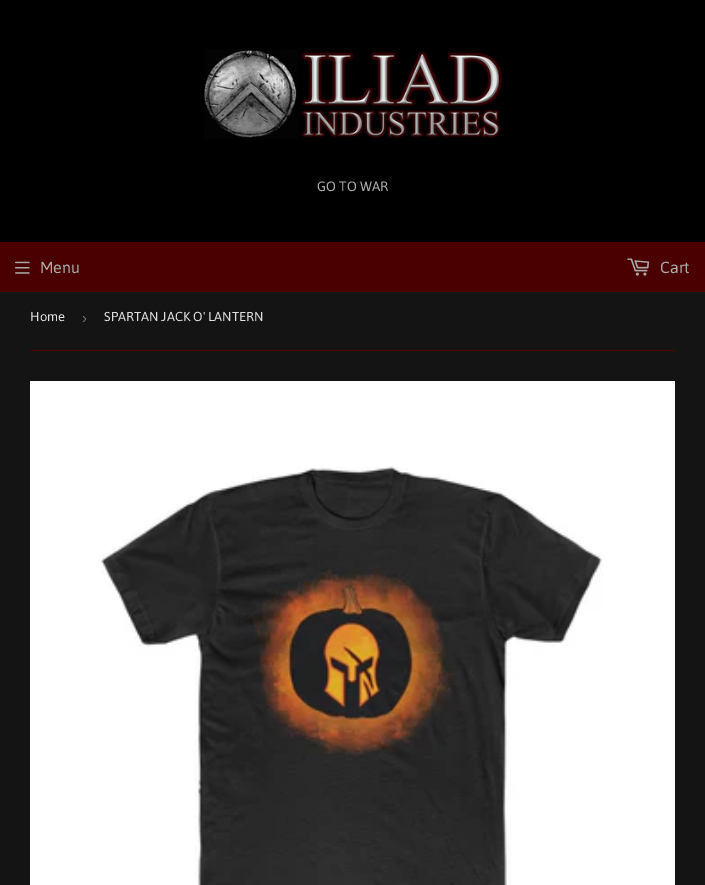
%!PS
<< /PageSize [705 885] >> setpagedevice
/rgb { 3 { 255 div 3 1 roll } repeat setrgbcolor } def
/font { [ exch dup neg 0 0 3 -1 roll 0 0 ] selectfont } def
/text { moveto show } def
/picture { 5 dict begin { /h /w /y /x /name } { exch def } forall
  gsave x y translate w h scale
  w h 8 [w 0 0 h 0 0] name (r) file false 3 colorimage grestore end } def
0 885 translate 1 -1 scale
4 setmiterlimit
20 20 20 rgb
0 0 705 885 rectfill
0 0 0 rgb
0 0 705 242 rectfill
(img_01.rgb) 204 49 299 90 picture
75 0 0 rgb
0 242 705 50 rectfill
(img_02.rgb) 15 261 15 13 picture
(img_03.rgb) 627 258 23 18 picture
89 0 0 rgb
30 350 645 1 rectfill
(img_04.rgb) 30 381 645 504 picture
/Asap-Regular 13.5 font
172 172 172 rgb
(GO TO WAR) 317 191 text
/Asap-Regular 16 font
(Menu) 40 273 text
(Cart) 660 273 text
/Asap-Regular 13 font
224 224 224 rgb
(Home) 30 321 text
/LiberationSans-Regular 15 font
118 118 118 rgb
(›) 82 323 text
/Asap-Regular 13 font
224 224 224 rgb
(SPARTAN JACK O' LANTERN) 104 321 text
showpage
